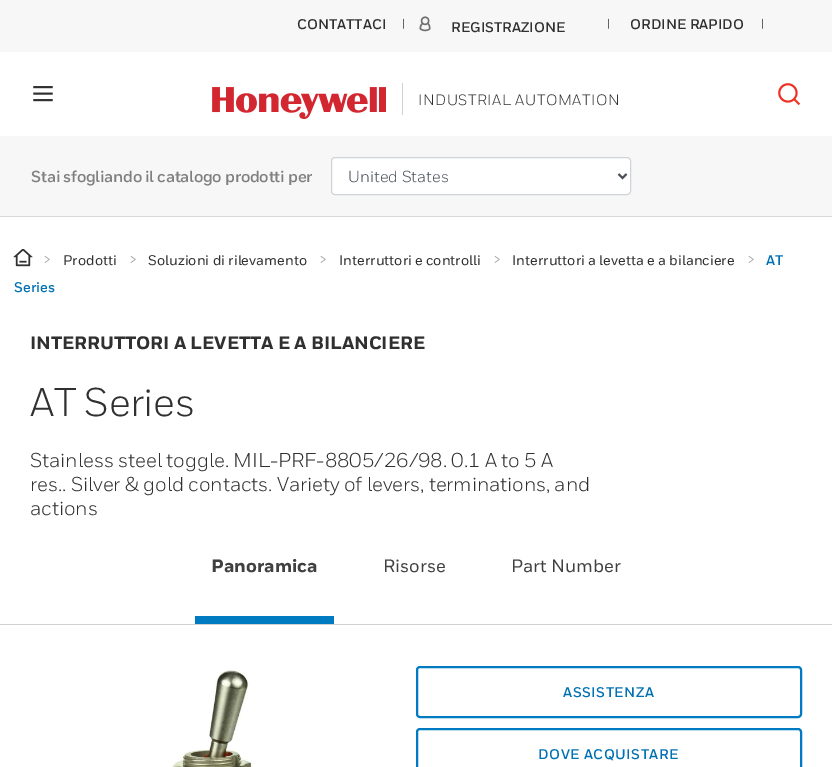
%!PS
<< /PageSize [832 767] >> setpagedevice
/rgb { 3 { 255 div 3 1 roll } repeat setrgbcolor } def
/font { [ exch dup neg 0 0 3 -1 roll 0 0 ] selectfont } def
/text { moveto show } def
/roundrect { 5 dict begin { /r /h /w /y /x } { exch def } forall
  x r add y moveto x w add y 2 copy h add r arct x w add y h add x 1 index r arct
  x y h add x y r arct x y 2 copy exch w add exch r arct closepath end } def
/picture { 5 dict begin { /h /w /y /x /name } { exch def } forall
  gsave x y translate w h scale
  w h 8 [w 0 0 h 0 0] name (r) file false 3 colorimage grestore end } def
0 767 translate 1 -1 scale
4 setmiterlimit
255 255 255 rgb
0 0 832 767 rectfill
247 247 247 rgb
0 0 832 52 rectfill
(img_01.rgb) 419 16 12 16 picture
216 216 216 rgb
0 216 832 1 rectfill
(img_02.rgb) 33 86 20 16 picture
(img_03.rgb) 212 87 174 32 picture
208 208 208 rgb
402 83 1 32 rectfill
(img_04.rgb) 778 83 23 23 picture
247 247 247 rgb
0 136 832 80 rectfill
255 255 255 rgb
331.5 157.5 299 37 3.5 roundrect gsave fill grestore
206 212 218 rgb
stroke
73 80 87 rgb
2 setlinewidth
618.5 174 moveto 4 4 rlineto 4 -4 rlineto stroke
(img_05.rgb) 13 249 20 18 picture
208 208 208 rgb
0 624 832 1 rectfill
0 123 194 rgb
195 616 139 8 rectfill
(img_06.rgb) 172 670 80 97 picture
417 667 384 50 3 roundrect stroke
417 729 384 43 3 roundrect stroke
/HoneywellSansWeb-Bold 14 font
48 48 48 rgb
(CONTATTACI) 297 29 text
/HoneywellSansWeb-Regular 12 font
(|) 402 28 text
/HoneywellSansWeb-Bold 14 font
(REGISTRAZIONE) 451 32 text
/HoneywellSansWeb-Regular 12 font
(|) 607 28 text
/HoneywellSansWeb-Bold 14 font
(ORDINE RAPIDO) 630 29 text
/HoneywellSansWeb-Regular 12 font
(|) 761 28 text
/HoneywellSansWeb-Regular 15 font
418 105 moveto 0.5 0 (INDUSTRIAL AUTOMATION) ashow
/HoneywellSansWeb-Bold 16 font
128 128 128 rgb
31 182 moveto -0.3 0 (Stai sfogliando il catalogo prodotti per) ashow
/HoneywellSansWeb-Regular 16 font
73 80 87 rgb
(United States) 348 182 text
/HoneywellSansWeb-Regular 18 font
160 160 160 rgb
(>) 43 265 text
/HoneywellSansWeb-Medium 14 font
48 48 48 rgb
(Prodotti) 63 265 text
/HoneywellSansWeb-Regular 18 font
160 160 160 rgb
(>) 129 265 text
/HoneywellSansWeb-Medium 14 font
48 48 48 rgb
(Soluzioni di rilevamento) 148 265 text
/HoneywellSansWeb-Regular 18 font
160 160 160 rgb
(>) 319 265 text
/HoneywellSansWeb-Medium 14 font
48 48 48 rgb
(Interruttori e controlli) 339 265 text
/HoneywellSansWeb-Regular 18 font
160 160 160 rgb
(>) 493 265 text
/HoneywellSansWeb-Medium 14 font
48 48 48 rgb
(Interruttori a levetta e a bilanciere) 512 265 text
/HoneywellSansWeb-Regular 18 font
160 160 160 rgb
(>) 747 265 text
/HoneywellSansWeb-Bold 14 font
0 113 179 rgb
(AT) 766 265 text
(Series) 14 292 text
/HoneywellSansWeb-ExtraBold 18 font
48 48 48 rgb
(INTERRUTTORI A LEVETTA E A BILANCIERE) 30 349 text
/HoneywellSansWeb-Regular 40 font
30 416 moveto -0.5 0 (AT Series) ashow
/HoneywellSansWeb-Regular 20 font
30 467 moveto -0.1 0 (Stainless steel toggle. MIL-PRF-8805/26/98. 0.1 A to 5 A) ashow
30 491 moveto -0.1 0 (res.. Silver & gold contacts. Variety of levers, terminations, and) ashow
30 515 moveto -0.1 0 (actions) ashow
/HoneywellSansWeb-ExtraBold 18 font
64 64 64 rgb
(Panoramica) 211 572 text
/HoneywellSansWeb-Medium 18 font
(Risorse) 383 572 text
(Part Number) 511 572 text
/HoneywellSansWeb-Bold 14 font
0 113 179 rgb
563 697 moveto 0.5 0 (ASSISTENZA) ashow
538 759 moveto 0.5 0 (DOVE ACQUISTARE) ashow
showpage
